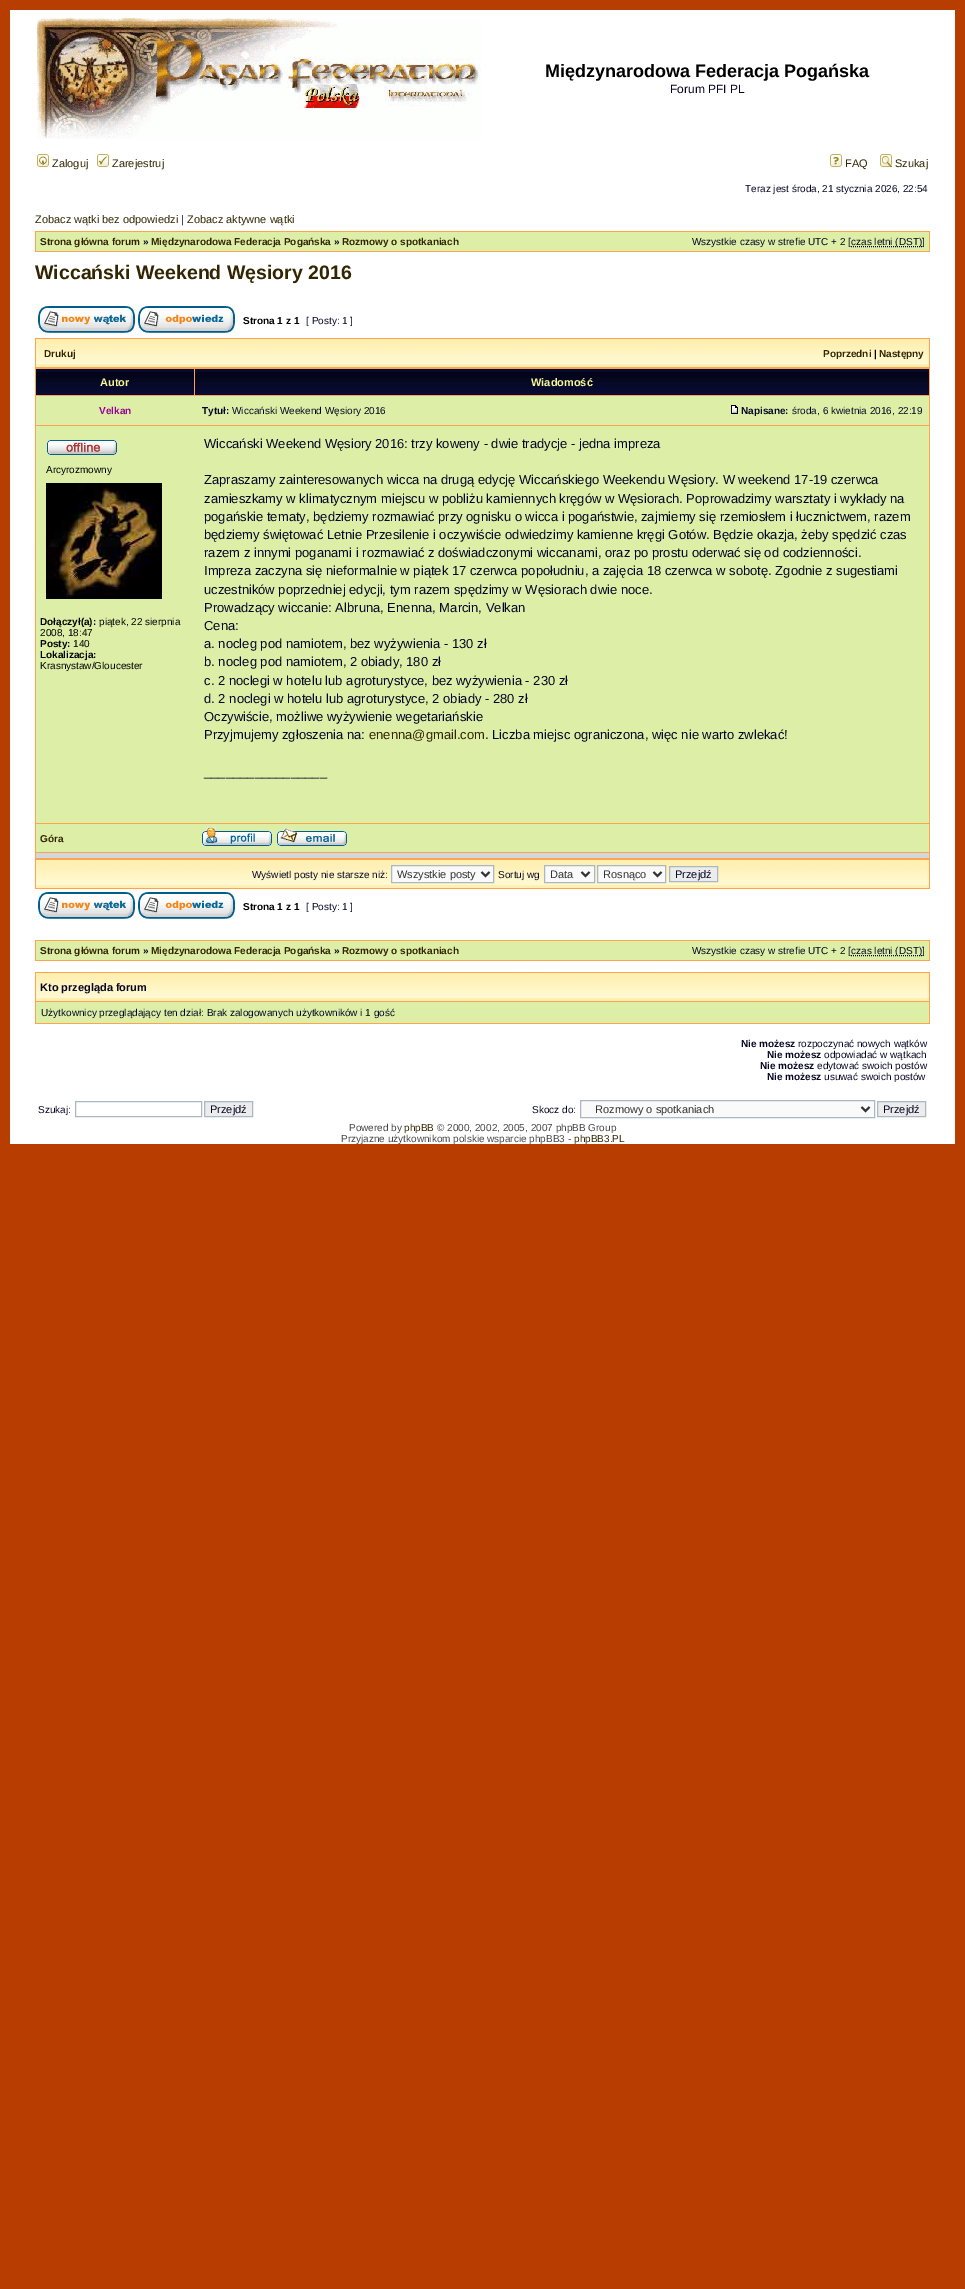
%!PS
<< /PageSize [965 2289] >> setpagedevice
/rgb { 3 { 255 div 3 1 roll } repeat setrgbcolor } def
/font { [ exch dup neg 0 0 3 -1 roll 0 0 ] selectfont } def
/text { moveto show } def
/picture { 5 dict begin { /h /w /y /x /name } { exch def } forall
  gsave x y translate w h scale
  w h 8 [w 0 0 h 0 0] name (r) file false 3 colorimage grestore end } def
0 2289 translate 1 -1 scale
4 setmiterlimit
184 61 0 rgb
0 0 965 2289 rectfill
255 255 255 rgb
10 10 945 1134 rectfill
(img_01.rgb) 37 18 444 121 picture
(img_02.rgb) 37 154 12 13 picture
(img_03.rgb) 97 154 12 13 picture
(img_04.rgb) 830 154 12 13 picture
(img_05.rgb) 880 154 12 13 picture
255 163 79 rgb
35 231 895 21 rectfill
221 238 166 rgb
36 232 893 19 rectfill
5 6 35 rgb
[1 1] 0 setdash
851 246.5 moveto 71 0 rlineto stroke
(img_06.rgb) 38 306 97 27 picture
(img_07.rgb) 138 306 97 27 picture
255 163 79 rgb
35 338 895 551 rectfill
(img_08.rgb) 36 339 893 28 picture
(img_09.rgb) 36 369 158 26 picture
(img_10.rgb) 195 369 734 26 picture
221 238 166 rgb
36 396 893 29 rectfill
(img_11.rgb) 731 405 7 9 picture
36 426 893 397 rectfill
(img_12.rgb) 47 440 70 15 picture
(img_13.rgb) 46 483 116 116 picture
36 824 893 28 rectfill
(img_14.rgb) 202 827 70 19 picture
(img_15.rgb) 277 828 70 18 picture
209 215 220 rgb
36 853 893 5 rectfill
(img_08.rgb) 36 860 893 28 picture
250 250 250 rgb
391.5 865.5 moveto 102 0 rlineto 0 17 rlineto -102 0 rlineto closepath gsave fill grestore
169 184 194 rgb
[] 0 setdash
stroke
51 51 51 rgb
2 setlinewidth
481.5 872 moveto 4 4 rlineto 4 -4 rlineto stroke
250 250 250 rgb
544.5 865.5 moveto 50 0 rlineto 0 17 rlineto -50 0 rlineto closepath gsave fill grestore
169 184 194 rgb
1 setlinewidth
stroke
51 51 51 rgb
2 setlinewidth
581.5 872 moveto 4 4 rlineto 4 -4 rlineto stroke
250 250 250 rgb
597.5 865.5 moveto 68 0 rlineto 0 17 rlineto -68 0 rlineto closepath gsave fill grestore
169 184 194 rgb
1 setlinewidth
stroke
51 51 51 rgb
2 setlinewidth
653.5 872 moveto 4 4 rlineto 4 -4 rlineto stroke
236 236 236 rgb
669.5 866.5 moveto 48 0 rlineto 0 15 rlineto -48 0 rlineto closepath gsave fill grestore
169 184 194 rgb
1 setlinewidth
stroke
(img_06.rgb) 38 892 97 27 picture
(img_07.rgb) 138 892 97 27 picture
255 163 79 rgb
35 940 895 21 rectfill
221 238 166 rgb
36 941 893 19 rectfill
5 6 35 rgb
[1 1] 0 setdash
851 955.5 moveto 71 0 rlineto stroke
255 163 79 rgb
35 972 895 52 rectfill
(img_08.rgb) 36 973 893 28 picture
221 238 166 rgb
36 1002 893 21 rectfill
169 184 194 rgb
[] 0 setdash
75.5 1101.5 126 15 rectstroke
236 236 236 rgb
204.5 1101.5 moveto 48 0 rlineto 0 15 rlineto -48 0 rlineto closepath gsave fill grestore
169 184 194 rgb
stroke
250 250 250 rgb
580.5 1100.5 moveto 294 0 rlineto 0 17 rlineto -294 0 rlineto closepath gsave fill grestore
169 184 194 rgb
stroke
51 51 51 rgb
2 setlinewidth
861.5 1107 moveto 4 4 rlineto 4 -4 rlineto stroke
236 236 236 rgb
877.5 1101.5 moveto 48 0 rlineto 0 15 rlineto -48 0 rlineto closepath gsave fill grestore
169 184 194 rgb
1 setlinewidth
stroke
/LiberationSans-Bold 18 font
0 0 0 rgb
(Międzynarodowa Federacja Pogańska) 545 77 text
/LiberationSans-Regular 12 font
5 6 35 rgb
(Forum PFI PL) 670 93 text
/LiberationSans-Regular 11 font
51 37 1 rgb
(Zaloguj) 52 167 text
(Zarejestruj) 112 167 text
(FAQ) 845 167 text
(Szukaj) 895 167 text
/LiberationSans-Regular 10 font
5 6 35 rgb
(Teraz jest środa, 21 stycznia 2026, 22:54) 745 192 text
/LiberationSans-Regular 11 font
51 37 1 rgb
(Zobacz wątki bez odpowiedzi) 35 223 text
5 6 35 rgb
(|) 181 223 text
51 37 1 rgb
(Zobacz aktywne wątki) 187 223 text
/LiberationSans-Bold 10 font
(Strona główna forum) 40 245 text
5 6 35 rgb
(») 143 245 text
51 37 1 rgb
(Międzynarodowa Federacja Pogańska) 151 245 text
5 6 35 rgb
(») 334 245 text
51 37 1 rgb
(Rozmowy o spotkaniach) 342 245 text
/LiberationSans-Regular 10 font
5 6 35 rgb
(Wszystkie czasy w strefie UTC + 2 [) 692 245 text
(czas letni \(DST\)]) 851 245 text
/LiberationSans-Bold 19.5 font
51 37 1 rgb
(Wiccański Weekend Węsiory 2016) 35 279 text
/LiberationSans-Bold 10 font
0 0 0 rgb
(Strona 1 z 1) 243 324 text
/LiberationSans-Regular 10 font
5 6 35 rgb
([ Posty: 1 ]) 306 324 text
/LiberationSans-Bold 10 font
51 37 1 rgb
(Drukuj) 44 357 text
(Poprzedni) 823 357 text
0 0 0 rgb
(|) 874 357 text
51 37 1 rgb
(Następny) 879 357 text
/LiberationSans-Bold 11 font
246 245 152 rgb
(Autor) 100 386 text
(Wiadomość) 531 386 text
/LiberationSans-Bold 10 font
153 0 153 rgb
(Velkan) 99 414 text
5 6 35 rgb
(Tytuł:) 202 414 text
/LiberationSans-Regular 10 font
(Wiccański Weekend Węsiory 2016) 232 414 text
/LiberationSans-Bold 10 font
(Napisane:) 741 414 text
/LiberationSans-Regular 10 font
(środa, 6 kwietnia 2016, 22:19) 792 414 text
0 0 0 rgb
(Arcyrozmowny) 46 473 text
/LiberationSans-Bold 10 font
(Dołączył\(a\):) 40 625 text
/LiberationSans-Regular 10 font
(piątek, 22 sierpnia) 99 625 text
(2008, 18:47) 40 636 text
/LiberationSans-Bold 10 font
(Posty:) 40 647 text
/LiberationSans-Regular 10 font
(140) 73 647 text
/LiberationSans-Bold 10 font
(Lokalizacja:) 40 658 text
/LiberationSans-Regular 10 font
(Krasnystaw/Gloucester) 40 669 text
/LiberationSans-Regular 13 font
5 6 35 rgb
(Wiccański Weekend Węsiory 2016: trzy koweny - dwie tradycje - jedna impreza) 204 448 text
(Zapraszamy zainteresowanych wicca na drugą edycję Wiccańskiego Weekendu Węsiory. W weekend 17-19 czerwca) 204 484 text
(zamieszkamy w klimatycznym miejscu w pobliżu kamiennych kręgów w Węsiorach. Poprowadzimy warsztaty i wykłady na) 204 503 text
(pogańskie tematy, będziemy rozmawiać przy ognisku o wicca i pogaństwie, zajmiemy się rzemiosłem i łucznictwem, razem) 204 521 text
(będziemy świętować Letnie Przesilenie i oczywiście odwiedzimy kamienne kręgi Gotów. Będzie okazja, żeby spędzić czas) 204 539 text
(razem z innymi poganami i rozmawiać z doświadczonymi wiccanami, oraz po prostu oderwać się od codzienności.) 204 557 text
(Impreza zaczyna się nieformalnie w piątek 17 czerwca popołudniu, a zajęcia 18 czerwca w sobotę. Zgodnie z sugestiami) 204 575 text
(uczestników poprzedniej edycji, tym razem spędzimy w Węsiorach dwie noce.) 204 594 text
(Prowadzący wiccanie: Albruna, Enenna, Marcin, Velkan) 204 612 text
(Cena:) 204 630 text
(a. nocleg pod namiotem, bez wyżywienia - 130 zł) 204 648 text
(b. nocleg pod namiotem, 2 obiady, 180 zł) 204 666 text
(c. 2 noclegi w hotelu lub agroturystyce, bez wyżywienia - 230 zł) 204 685 text
(d. 2 noclegi w hotelu lub agroturystyce, 2 obiady - 280 zł) 204 703 text
(Oczywiście, możliwe wyżywienie wegetariańskie) 204 721 text
(Przyjmujemy zgłoszenia na:) 204 739 text
51 37 1 rgb
(enenna@gmail.com) 369 739 text
5 6 35 rgb
(. Liczba miejsc ograniczona, więc nie warto zwlekać!) 485 739 text
(_________________) 204 776 text
/LiberationSans-Bold 10 font
51 37 1 rgb
(Góra) 40 842 text
/LiberationSans-Regular 10 font
5 6 35 rgb
(Wyświetl posty nie starsze niż:) 252 878 text
/LiberationSans-Regular 11 font
51 51 51 rgb
(Wszystkie posty) 397 878 text
/LiberationSans-Regular 10 font
5 6 35 rgb
(Sortuj wg) 498 878 text
/LiberationSans-Regular 11 font
51 51 51 rgb
(Data) 550 878 text
(Rosnąco) 603 878 text
5 6 35 rgb
(Przejdź) 675 878 text
/LiberationSans-Bold 10 font
0 0 0 rgb
(Strona 1 z 1) 243 910 text
/LiberationSans-Regular 10 font
5 6 35 rgb
([ Posty: 1 ]) 306 910 text
/LiberationSans-Bold 10 font
51 37 1 rgb
(Strona główna forum) 40 954 text
5 6 35 rgb
(») 143 954 text
51 37 1 rgb
(Międzynarodowa Federacja Pogańska) 151 954 text
5 6 35 rgb
(») 334 954 text
51 37 1 rgb
(Rozmowy o spotkaniach) 342 954 text
/LiberationSans-Regular 10 font
5 6 35 rgb
(Wszystkie czasy w strefie UTC + 2 [) 692 954 text
(czas letni \(DST\)]) 851 954 text
/LiberationSans-Bold 11 font
(Kto przegląda forum) 40 991 text
/LiberationSans-Regular 10 font
(Użytkownicy przeglądający ten dział: Brak zalogowanych użytkowników i 1 gość) 41 1016 text
/LiberationSans-Bold 10 font
(Nie możesz) 741 1047 text
/LiberationSans-Regular 10 font
(rozpoczynać nowych wątków) 798 1047 text
/LiberationSans-Bold 10 font
(Nie możesz) 767 1058 text
/LiberationSans-Regular 10 font
(odpowiadać w wątkach) 824 1058 text
/LiberationSans-Bold 10 font
(Nie możesz) 760 1069 text
/LiberationSans-Regular 10 font
(edytować swoich postów) 817 1069 text
/LiberationSans-Bold 10 font
(Nie możesz) 767 1080 text
/LiberationSans-Regular 10 font
(usuwać swoich postów) 824 1080 text
(Szukaj:) 38 1113 text
/LiberationSans-Regular 11 font
(Przejdź) 210 1113 text
/LiberationSans-Regular 10 font
(Skocz do:) 532 1113 text
/LiberationSans-Regular 11 font
51 51 51 rgb
(Rozmowy o spotkaniach) 595 1113 text
5 6 35 rgb
(Przejdź) 883 1113 text
/LiberationSans-Regular 10 font
68 68 68 rgb
(Powered by) 349 1131 text
51 37 1 rgb
(phpBB) 404 1131 text
68 68 68 rgb
(© 2000, 2002, 2005, 2007 phpBB Group) 437 1131 text
(Przyjazne użytkownikom polskie wsparcie phpBB3 -) 341 1142 text
51 37 1 rgb
(phpBB3.PL) 574 1142 text
showpage
